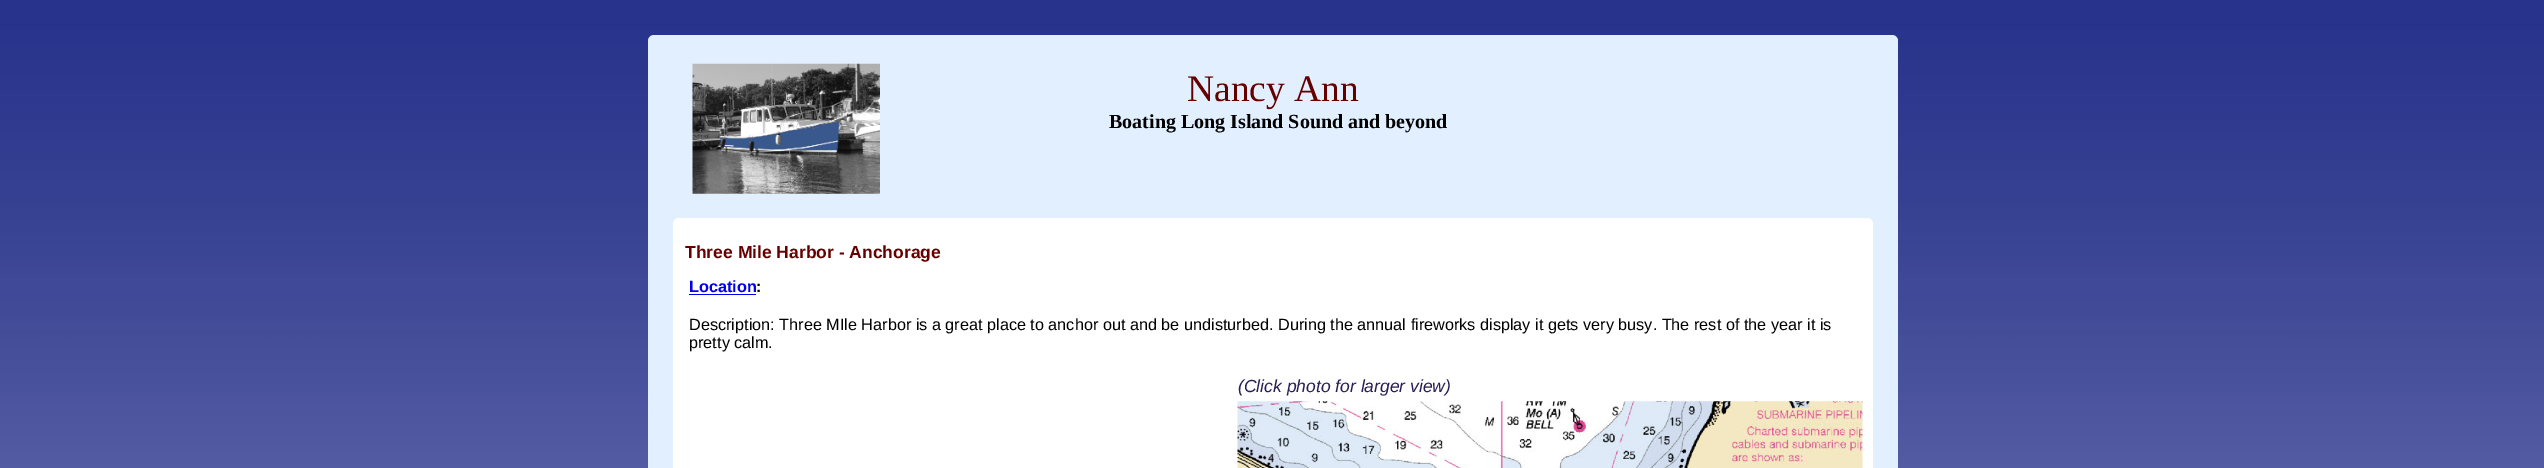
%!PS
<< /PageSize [2544 468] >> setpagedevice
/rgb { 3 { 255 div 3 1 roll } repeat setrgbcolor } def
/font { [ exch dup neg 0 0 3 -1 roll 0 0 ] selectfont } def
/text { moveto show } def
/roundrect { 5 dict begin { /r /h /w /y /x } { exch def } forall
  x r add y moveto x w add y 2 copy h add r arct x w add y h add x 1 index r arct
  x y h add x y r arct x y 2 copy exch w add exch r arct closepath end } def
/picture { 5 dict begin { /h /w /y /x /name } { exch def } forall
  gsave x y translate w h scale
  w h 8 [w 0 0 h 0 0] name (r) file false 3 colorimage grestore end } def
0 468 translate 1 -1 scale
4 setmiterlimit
255 255 255 rgb
0 0 2544 468 rectfill
(img_01.rgb) 0 0 2544 468 picture
226 239 255 rgb
648 35 1250 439 6 roundrect fill
(img_02.rgb) 692 63 188 131 picture
255 255 255 rgb
673 218 1200 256 6 roundrect fill
0 0 238 rgb
689 294 67 1 rectfill
(img_03.rgb) 1237 401 626 67 picture
/LiberationSerif-Regular 37.5 font
102 0 0 rgb
(Nancy Ann) 1187 101 text
/LiberationSerif-Bold 20 font
0 0 0 rgb
(Boating Long Island Sound and beyond) 1109 128 text
/LiberationSans-Bold 17.5 font
102 0 0 rgb
(Three Mile Harbor - Anchorage) 685 258 text
/LiberationSans-Bold 16.25 font
0 0 238 rgb
(Location) 689 292 text
0 0 0 rgb
(:) 756 292 text
/LiberationSans-Regular 16.25 font
(Description: Three MIle Harbor is a great place to anchor out and be undisturbed. During the annual fireworks display it gets very busy. The rest of the year it is) 689 330 text
(pretty calm.) 689 348 text
/LiberationSans-Italic 17.5 font
42 31 85 rgb
(\(Click photo for larger view\)) 1238 392 text
showpage
